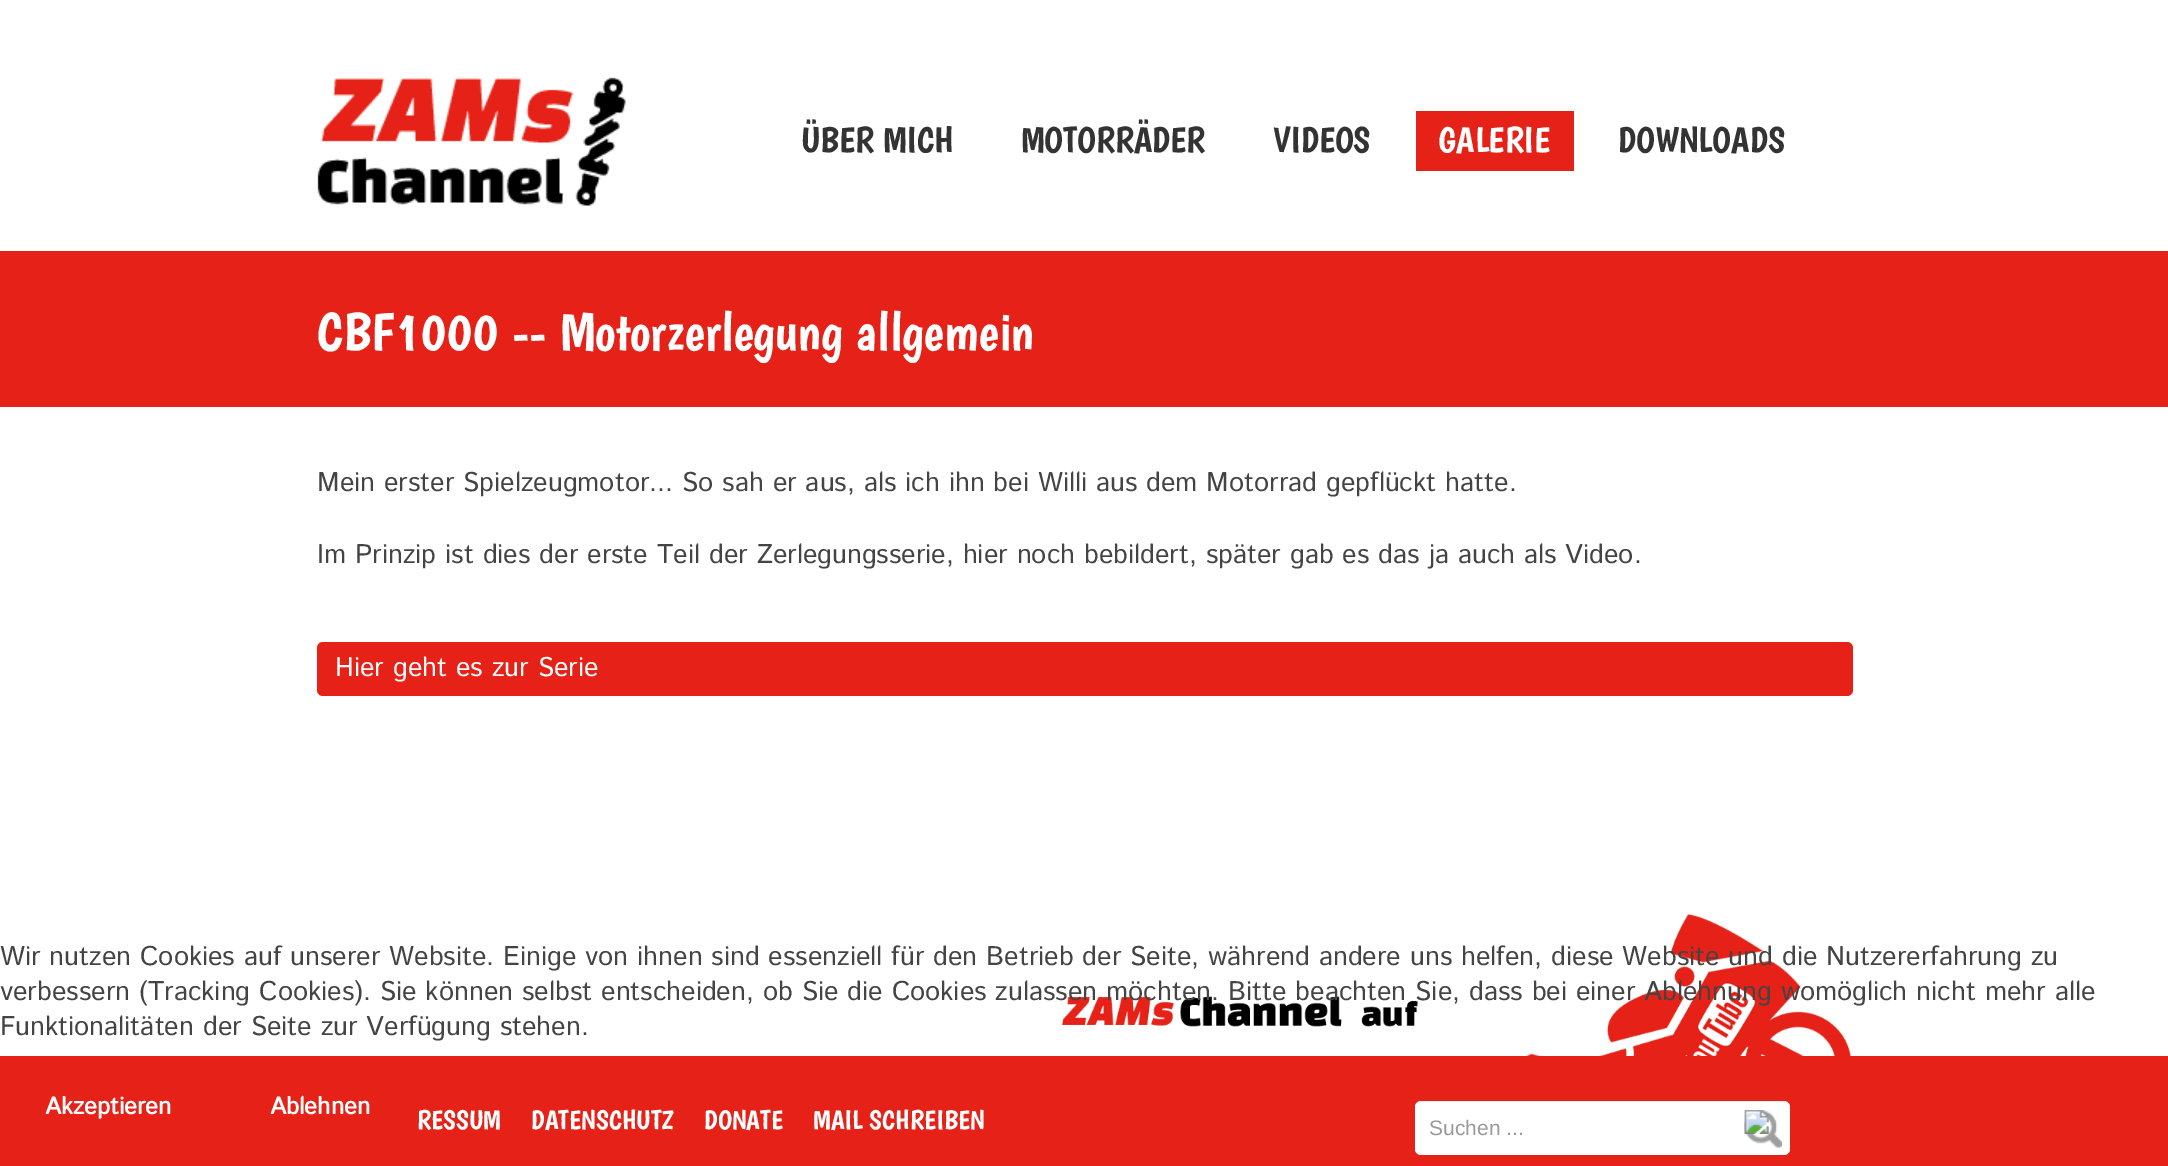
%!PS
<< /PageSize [2168 1166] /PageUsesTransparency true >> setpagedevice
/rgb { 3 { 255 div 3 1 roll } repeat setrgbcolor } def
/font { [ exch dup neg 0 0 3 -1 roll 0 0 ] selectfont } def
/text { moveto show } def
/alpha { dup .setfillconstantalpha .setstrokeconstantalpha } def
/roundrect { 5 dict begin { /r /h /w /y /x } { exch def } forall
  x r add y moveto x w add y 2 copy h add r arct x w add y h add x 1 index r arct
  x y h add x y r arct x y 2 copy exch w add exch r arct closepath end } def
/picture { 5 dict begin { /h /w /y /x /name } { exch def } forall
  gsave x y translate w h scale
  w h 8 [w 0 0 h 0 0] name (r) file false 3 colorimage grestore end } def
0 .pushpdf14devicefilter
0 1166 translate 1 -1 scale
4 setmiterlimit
255 255 255 rgb
0 0 2168 1166 rectfill
230 33 23 rgb
0 251 2168 156 rectfill
(img_01.rgb) 317 77 309 129 picture
1416 111 158 60 rectfill
317 642 1536 54 6 roundrect fill
(img_02.rgb) 1062 996 356 31 picture
(img_03.rgb) 1525 914 326 142 picture
0 1056 2168 110 rectfill
255 255 255 rgb
1415 1101 375 54 6 roundrect fill
0.07 alpha
0 0 0 rgb
1420 1102 moveto 364 0 rlineto 3 0 6 3 6 6 rcurveto 0 -1 rlineto 0 -3 -3 -6 -6 -6 rcurveto -363 0 rlineto -2 0 -4 1 -5 3 rcurveto 1 -1 3 -2 4 -2 rcurveto closepath fill
1 alpha
(img_04.rgb) 1744 1110 38 38 picture
(img_05.rgb) 1744 1110 25 24 picture
/Boogaloo-Regular 36 font
51 51 51 rgb
(ÜBER MICH) 801 152 text
(MOTORRÄDER) 1021 152 text
(VIDEOS) 1273 152 text
255 255 255 rgb
(GALERIE) 1438 152 text
51 51 51 rgb
(DOWNLOADS) 1618 152 text
/Boogaloo-Regular 54 font
255 255 255 rgb
(CBF1000 -- Motorzerlegung allgemein) 317 350 text
/IstokWeb-Regular 27 font
68 68 68 rgb
(Mein erster Spielzeugmotor... So sah er aus, als ich ihn bei Willi aus dem Motorrad gepflückt hatte.) 317 491 text
(Im Prinzip ist dies der erste Teil der Zerlegungsserie, hier noch bebildert, später gab es das ja auch als Video.) 317 563 text
255 255 255 rgb
(Hier geht es zur Serie) 335 676 text
68 68 68 rgb
(Wir nutzen Cookies auf unserer Website. Einige von ihnen sind essenziell für den Betrieb der Seite, während andere uns helfen, diese Website und die Nutzererfahrung zu) 0 965 text
(verbessern \(Tracking Cookies\). Sie können selbst entscheiden, ob Sie die Cookies zulassen möchten. Bitte beachten Sie, dass bei einer Ablehnung womöglich nicht mehr alle) 0 1000 text
(Funktionalitäten der Seite zur Verfügung stehen.) 0 1035 text
/IstokWeb-Bold 24 font
255 255 255 rgb
(Akzeptieren) 45 1114 text
(Ablehnen) 270 1114 text
/Boogaloo-Regular 27 font
(RESSUM) 417 1129 text
(DATENSCHUTZ) 531 1129 text
(DONATE) 704 1129 text
(MAIL SCHREIBEN) 813 1129 text
/LiberationSans-Regular 21 font
153 153 153 rgb
(Suchen ...) 1429 1135 text
.poppdf14devicefilter showpage
